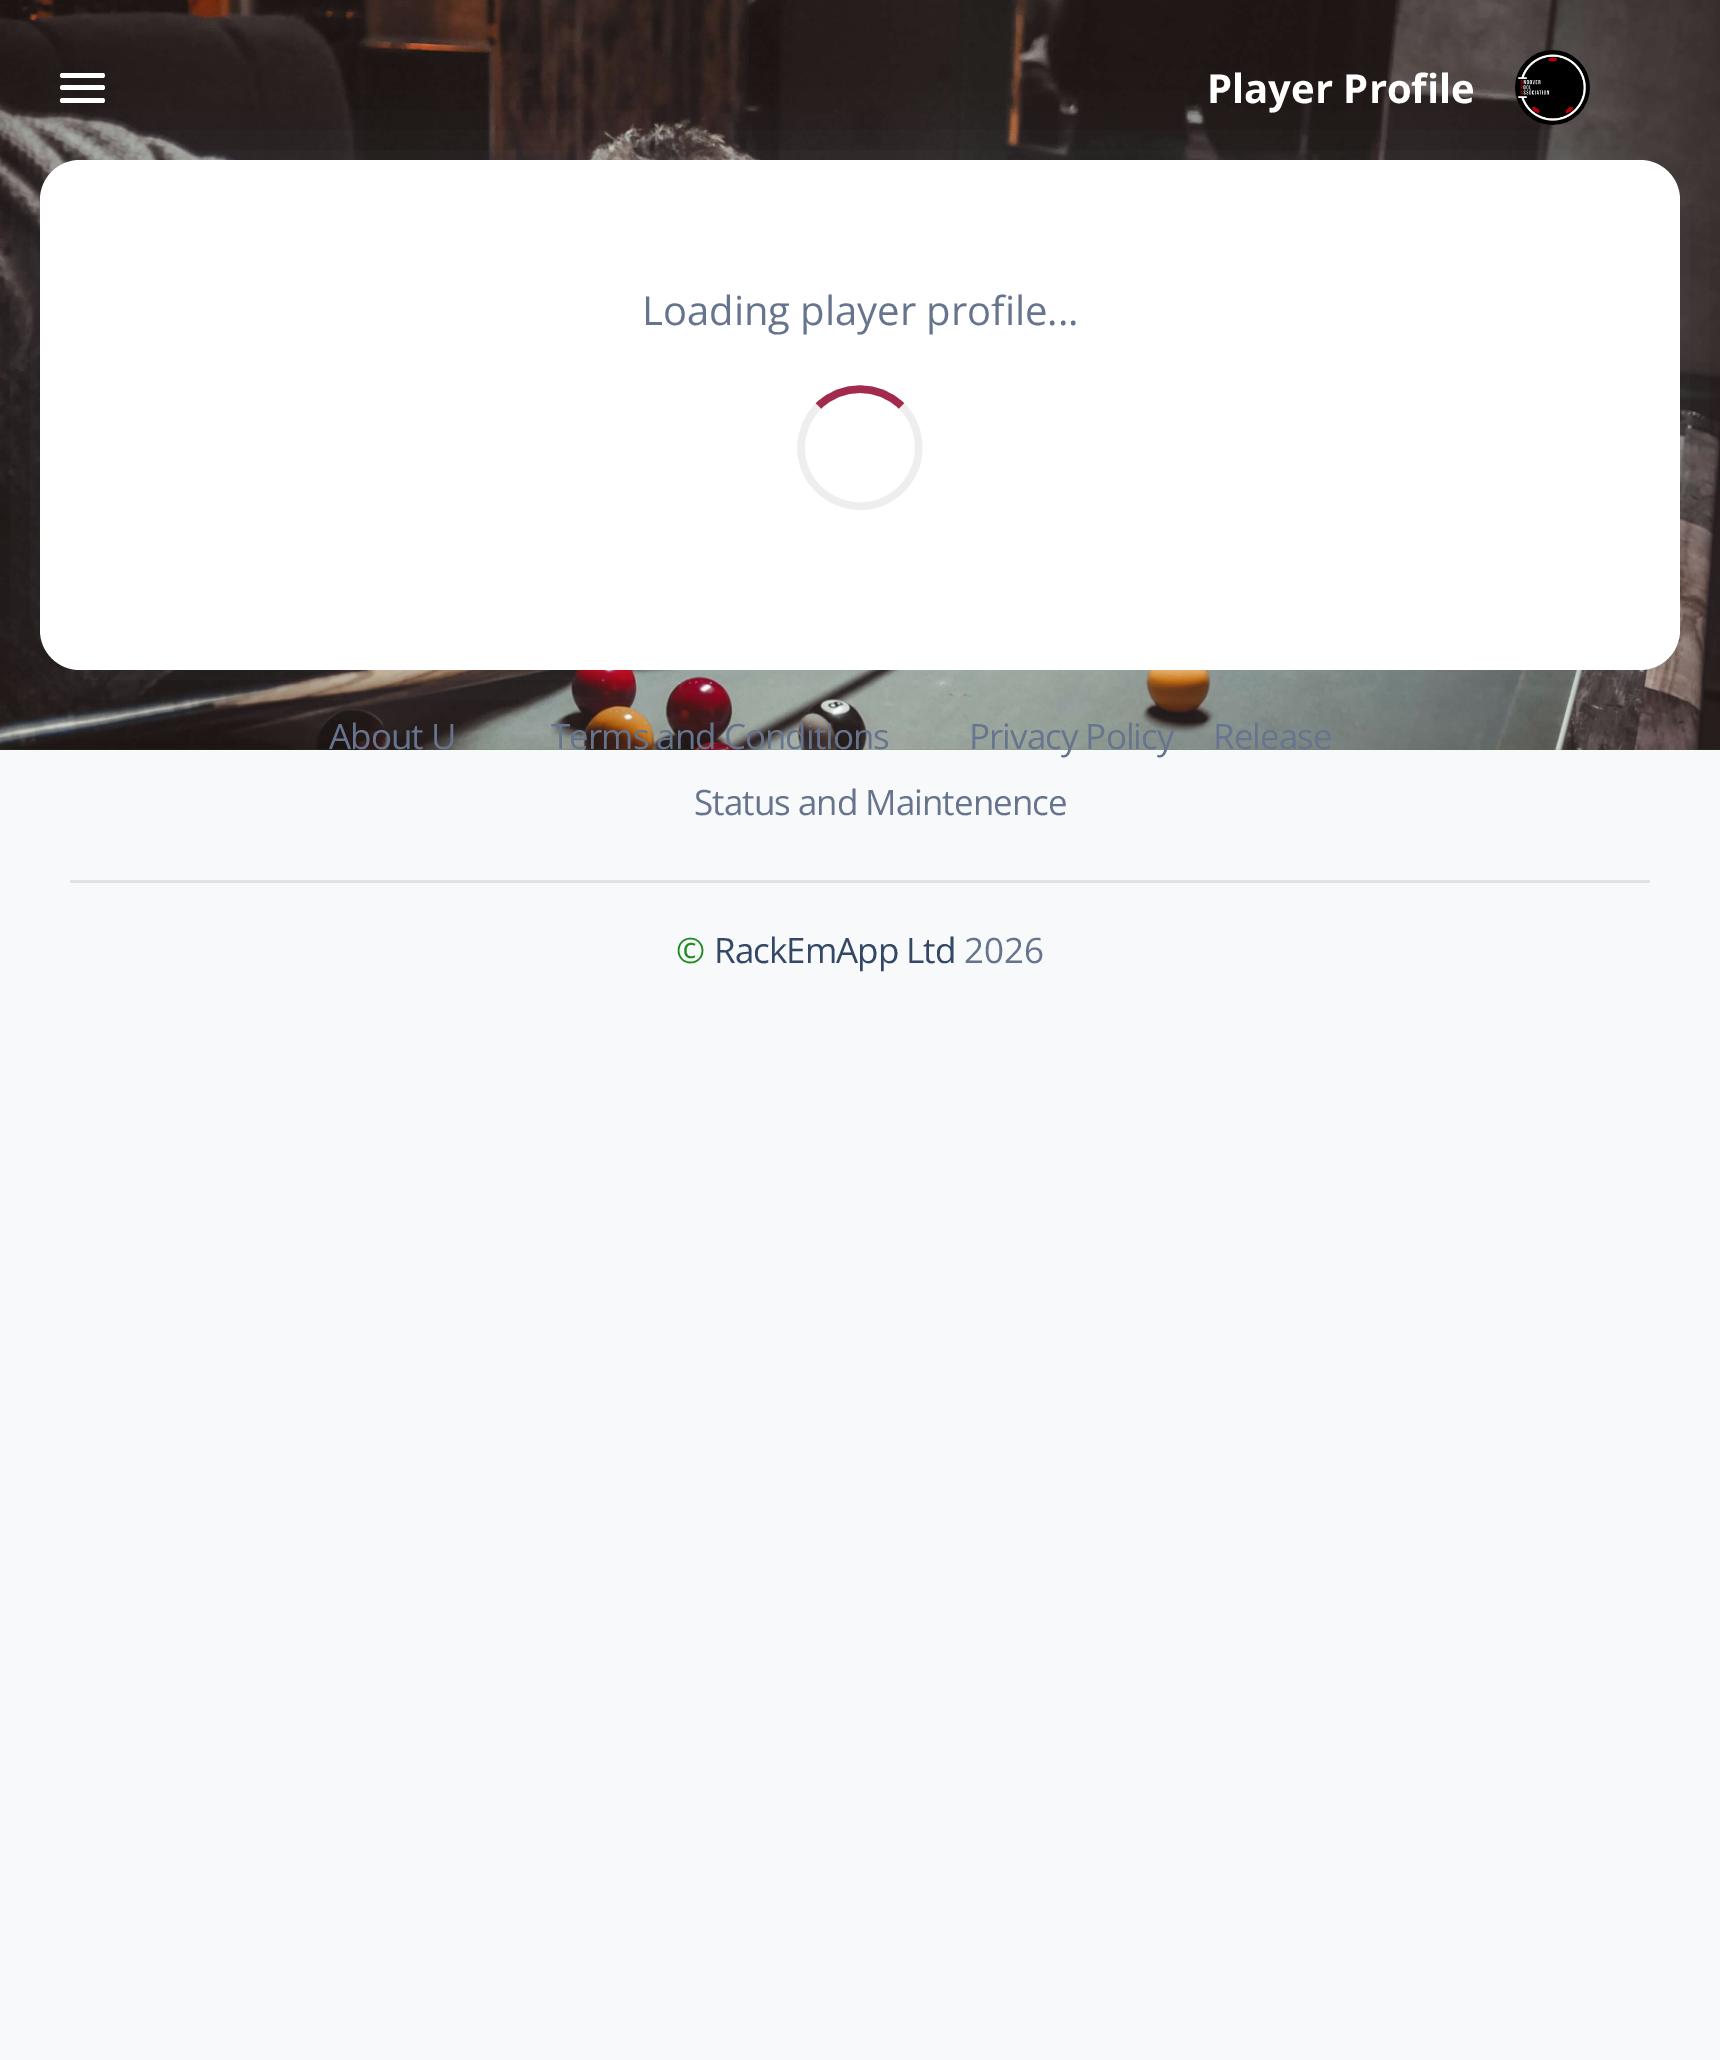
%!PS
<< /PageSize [1720 2060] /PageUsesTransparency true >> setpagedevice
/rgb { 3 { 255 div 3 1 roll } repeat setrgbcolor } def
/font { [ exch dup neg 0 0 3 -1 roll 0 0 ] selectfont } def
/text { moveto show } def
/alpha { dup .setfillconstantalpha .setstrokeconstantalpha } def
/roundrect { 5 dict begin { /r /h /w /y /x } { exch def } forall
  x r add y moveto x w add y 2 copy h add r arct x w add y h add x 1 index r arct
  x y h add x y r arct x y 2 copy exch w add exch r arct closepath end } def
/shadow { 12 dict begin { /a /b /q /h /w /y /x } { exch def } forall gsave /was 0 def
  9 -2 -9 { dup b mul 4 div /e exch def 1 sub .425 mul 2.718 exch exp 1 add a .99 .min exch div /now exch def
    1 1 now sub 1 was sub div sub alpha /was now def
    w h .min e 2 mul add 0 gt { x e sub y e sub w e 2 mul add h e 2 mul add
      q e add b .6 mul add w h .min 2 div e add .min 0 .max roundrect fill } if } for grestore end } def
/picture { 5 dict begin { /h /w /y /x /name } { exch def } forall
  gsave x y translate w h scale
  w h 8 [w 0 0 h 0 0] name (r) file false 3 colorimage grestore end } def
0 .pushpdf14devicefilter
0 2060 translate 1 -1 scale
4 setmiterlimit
248 249 250 rgb
0 0 1720 2060 rectfill
(img_01.rgb) 0 0 1720 750 picture
136 152 170 rgb
40 160 1640 510 40 40 0.15 shadow
255 255 255 rgb
60 73 45 5 2.5 roundrect fill
60 85 45 5 2.5 roundrect fill
60 98 45 5 2.5 roundrect fill
(img_02.rgb) 1515 50 75 75 picture
40 160 1640 510 40 roundrect fill
162 43 77 rgb
7.5 setlinewidth
818.5 406 moveto 22.5 -22.5 60.5 -22.5 83 0 rcurveto stroke
0.3 alpha
200 200 200 rgb
901.5 406 moveto 14 13.5 20 34 16 53 rcurveto -2 11.5 -8 22 -16 30 rcurveto -36.5 37 -100.5 10.5 -100.5 -41.5 rcurveto 0 -15.5 6.5 -30.5 17.5 -41.5 rcurveto stroke
1 alpha
222 226 230 rgb
70 880 1580 3 rectfill
/OpenSans-Bold 40 font
255 255 255 rgb
(Player Profile) 1207 103 text
/OpenSans-Regular 40 font
103 116 142 rgb
(Loading player profile...) 642 325 text
/OpenSans-Regular 35 font
329 749 moveto -1 0 (About U) ashow
551 749 moveto -1 0 (Terms and Conditions) ashow
969 749 moveto -1 0 (Privacy Policy) ashow
1213 749 moveto -1 0 (Release) ashow
694 815 moveto -1 0 (Status and Maintenence) ashow
34 139 34 rgb
(©) 676 963 text
52 71 103 rgb
714 963 moveto -1 0 (RackEmApp Ltd) ashow
103 116 142 rgb
(2026) 964 963 text
.poppdf14devicefilter showpage
